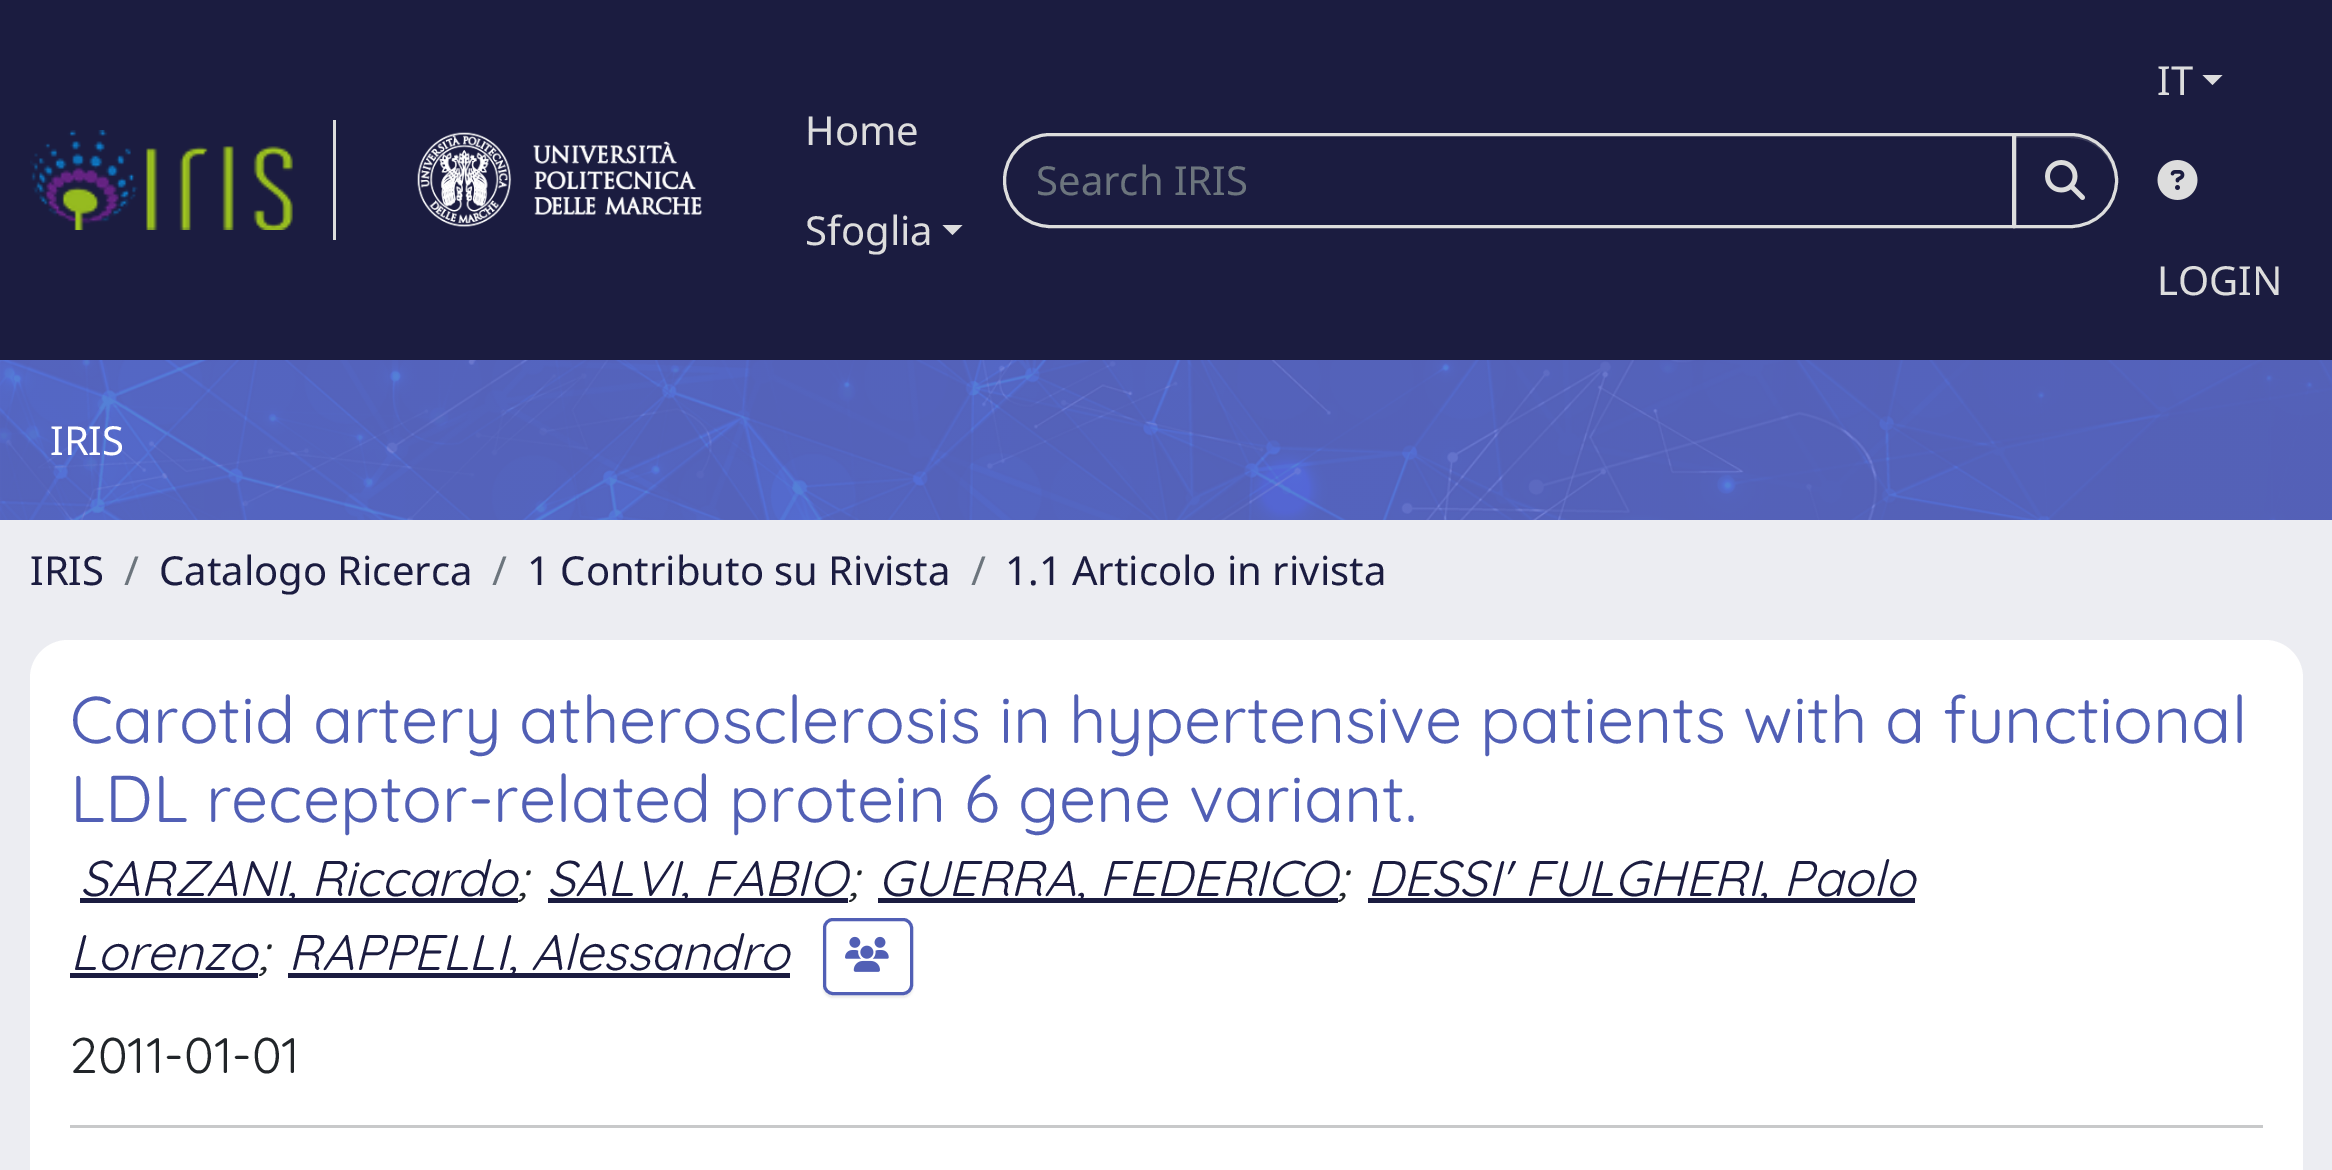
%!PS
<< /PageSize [2332 1170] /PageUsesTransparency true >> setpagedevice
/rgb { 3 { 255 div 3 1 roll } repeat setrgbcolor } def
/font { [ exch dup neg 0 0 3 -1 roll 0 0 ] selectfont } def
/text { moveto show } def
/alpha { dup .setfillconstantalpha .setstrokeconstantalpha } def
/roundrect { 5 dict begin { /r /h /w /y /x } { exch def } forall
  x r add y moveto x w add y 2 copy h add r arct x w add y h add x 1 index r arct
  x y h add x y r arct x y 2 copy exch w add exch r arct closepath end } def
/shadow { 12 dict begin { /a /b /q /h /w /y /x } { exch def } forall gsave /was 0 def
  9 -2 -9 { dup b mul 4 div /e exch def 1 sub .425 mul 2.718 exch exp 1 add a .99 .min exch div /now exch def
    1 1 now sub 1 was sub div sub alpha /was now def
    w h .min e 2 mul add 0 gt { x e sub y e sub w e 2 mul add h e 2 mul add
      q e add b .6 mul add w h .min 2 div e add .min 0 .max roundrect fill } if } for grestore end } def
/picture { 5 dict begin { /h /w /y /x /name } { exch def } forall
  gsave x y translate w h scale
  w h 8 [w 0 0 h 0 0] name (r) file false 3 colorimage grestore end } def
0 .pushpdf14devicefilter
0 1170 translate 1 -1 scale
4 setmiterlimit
236 237 242 rgb
0 0 2332 1170 rectfill
27 28 64 rgb
0 0 2332 360 rectfill
221 221 221 rgb
333 120 3 120 rectfill
(img_01.rgb) 30 130 263 100 picture
(img_02.rgb) 417 132 285 95 picture
942.5 225 moveto 20 0 rlineto -10 10 rlineto closepath fill
3 setlinewidth
1050.5 134.5 moveto 963 0 rlineto 0 92 rlineto -963 0 rlineto -25.5 0 -46 -20.5 -46 -46 rcurveto 0 -25.5 20.5 -46 46 -46 rcurveto closepath stroke
0 0 0 rgb
2013 135 105 95 47.5 1 0.07 shadow
27 28 64 rgb
2013 133 moveto 57.5 0 rlineto 26 0 47.5 21.5 47.5 47.5 rcurveto 0 26 -21.5 47.5 -47.5 47.5 rcurveto -57.5 0 rlineto closepath fill
61 62 93 rgb
2015 138 moveto 55 0 rlineto 25 0 44 19 45 43 rcurveto 0 -1 rlineto 0 -25 -20 -45 -45 -45 rcurveto -55 0 rlineto closepath fill
221 221 221 rgb
2014.5 134.5 moveto 56 0 rlineto 25.5 0 46 20.5 46 46 rcurveto 0 25.5 -20.5 46 -46 46 rcurveto -56 0 rlineto closepath stroke
(img_03.rgb) 2045 160 40 40 picture
2202.5 75 moveto 20 0 rlineto -10 10 rlineto closepath fill
(img_04.rgb) 2157 160 41 40 picture
(img_05.rgb) 0 360 2332 160 picture
255 255 255 rgb
30 640 2273 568 38 roundrect fill
27 28 64 rgb
80 898 438 5 rectfill
548 898 300 5 rectfill
878 898 460 5 rectfill
1368 898 547 5 rectfill
70 973 188 5 rectfill
288 973 502 5 rectfill
gsave
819 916 moveto 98 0 rlineto 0 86 rlineto -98 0 rlineto closepath 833 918 moveto 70 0 rlineto 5.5 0 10 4.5 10 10 rcurveto 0 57 rlineto 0 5.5 -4.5 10 -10 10 rcurveto -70 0 rlineto -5.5 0 -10 -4.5 -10 -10 rcurveto 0 -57 rlineto 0 -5.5 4.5 -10 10 -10 rcurveto closepath eoclip newpath
0 0 0 rgb
823 920 90 78 10 1 0.07 shadow
grestore
81 95 181 rgb
824.5 919.5 87 74 8.5 roundrect stroke
(img_06.rgb) 845 936 44 36 picture
200 201 202 rgb
70 1125 2193 3 rectfill
/NotoSans-Regular 40 font
221 221 221 rgb
(Home) 805 145 text
(Sfoglia) 805 245 text
108 117 125 rgb
(Search IRIS) 1036 195 text
221 221 221 rgb
(IT) 2157 95 text
(LOGIN) 2157 295 text
255 255 255 rgb
(IRIS) 50 455 text
27 28 64 rgb
(IRIS) 30 585 text
108 117 125 rgb
(/) 124 585 text
27 28 64 rgb
(Catalogo Ricerca) 159 585 text
108 117 125 rgb
(/) 492 585 text
27 28 64 rgb
(1 Contributo su Rivista) 527 585 text
108 117 125 rgb
(/) 971 585 text
27 28 64 rgb
(1.1 Articolo in rivista) 1005 585 text
/Quicksand-Regular 66 font
81 95 181 rgb
70 743 moveto -0.25 0 32 (Carotid artery atherosclerosis in hypertensive patients with a functional) widthshow
70 822 moveto -0.25 0 32 (LDL receptor-related protein 6 gene variant.) widthshow
/Quicksand-Italic 50 font
27 28 64 rgb
(SARZANI, Riccardo) 80 896 text
33 37 41 rgb
(;) 517 896 text
27 28 64 rgb
(SALVI, FABIO) 547 896 text
33 37 41 rgb
(;) 848 896 text
27 28 64 rgb
(GUERRA, FEDERICO) 878 896 text
33 37 41 rgb
(;) 1337 896 text
27 28 64 rgb
(DESSI' FULGHERI, Paolo) 1367 896 text
(Lorenzo) 70 970 text
33 37 41 rgb
(;) 258 970 text
27 28 64 rgb
(RAPPELLI, Alessandro) 288 970 text
/Quicksand-Regular 50 font
33 37 41 rgb
(2011-01-01) 70 1073 text
.poppdf14devicefilter showpage
